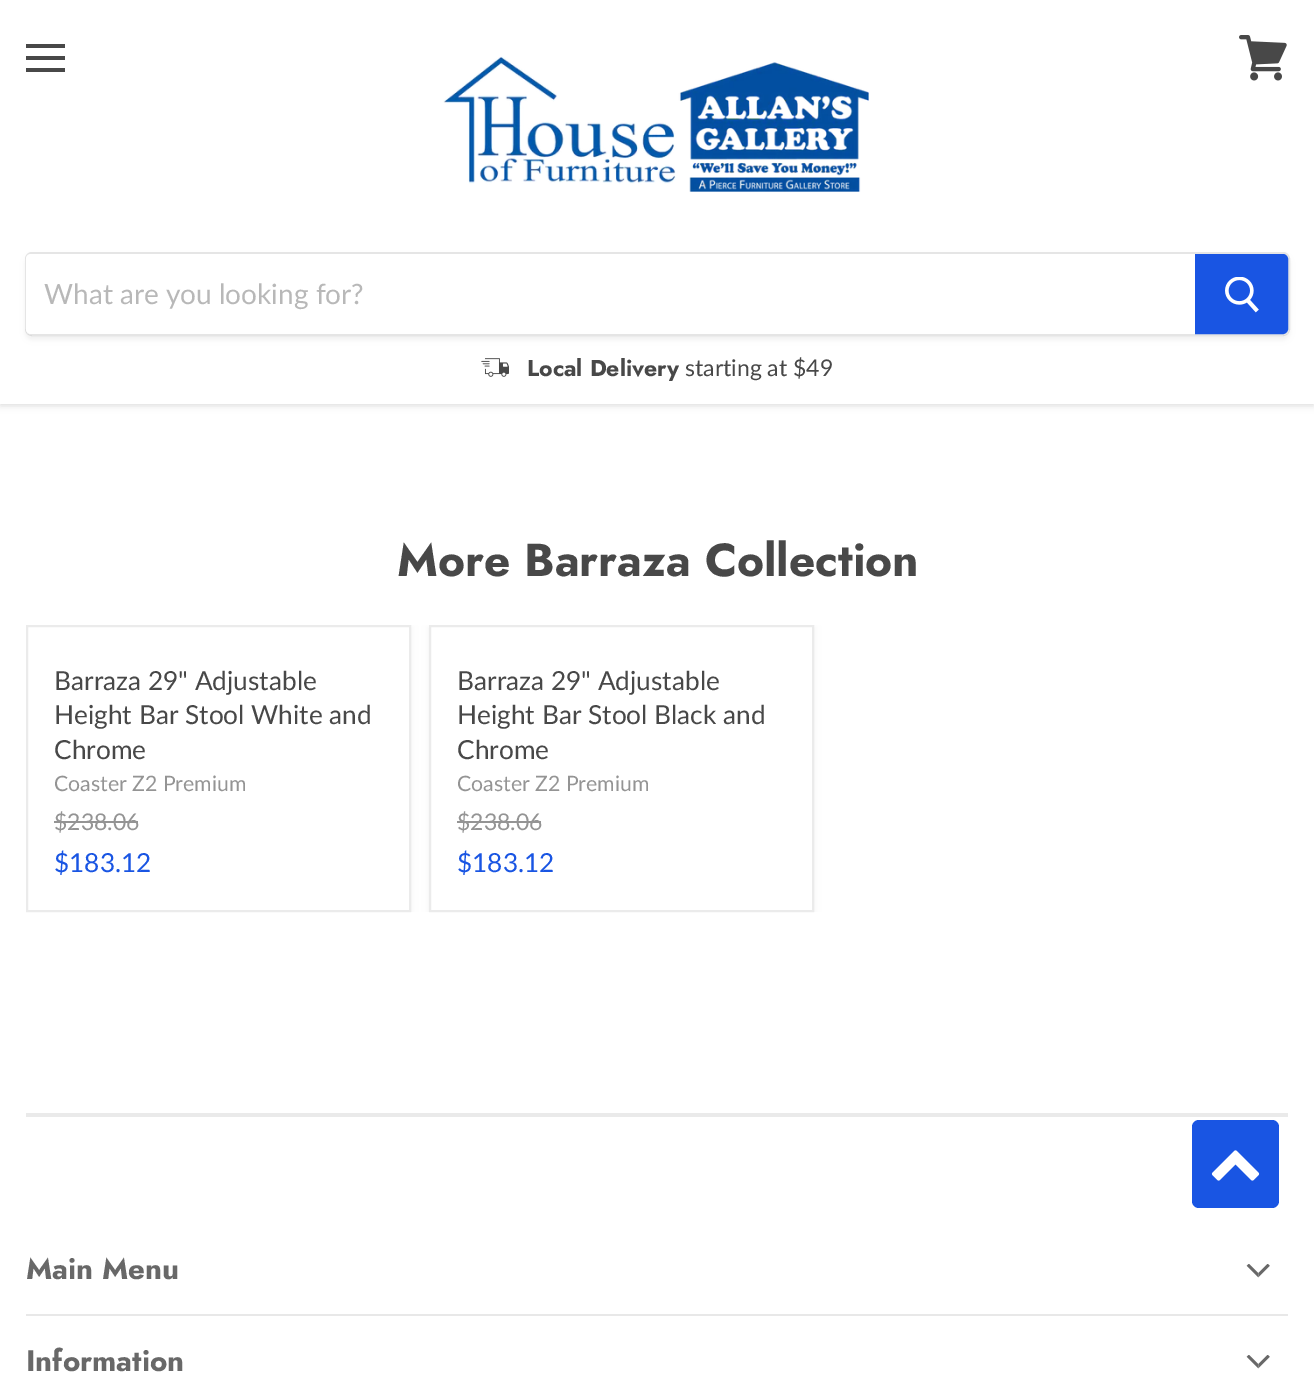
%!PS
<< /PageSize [1314 1382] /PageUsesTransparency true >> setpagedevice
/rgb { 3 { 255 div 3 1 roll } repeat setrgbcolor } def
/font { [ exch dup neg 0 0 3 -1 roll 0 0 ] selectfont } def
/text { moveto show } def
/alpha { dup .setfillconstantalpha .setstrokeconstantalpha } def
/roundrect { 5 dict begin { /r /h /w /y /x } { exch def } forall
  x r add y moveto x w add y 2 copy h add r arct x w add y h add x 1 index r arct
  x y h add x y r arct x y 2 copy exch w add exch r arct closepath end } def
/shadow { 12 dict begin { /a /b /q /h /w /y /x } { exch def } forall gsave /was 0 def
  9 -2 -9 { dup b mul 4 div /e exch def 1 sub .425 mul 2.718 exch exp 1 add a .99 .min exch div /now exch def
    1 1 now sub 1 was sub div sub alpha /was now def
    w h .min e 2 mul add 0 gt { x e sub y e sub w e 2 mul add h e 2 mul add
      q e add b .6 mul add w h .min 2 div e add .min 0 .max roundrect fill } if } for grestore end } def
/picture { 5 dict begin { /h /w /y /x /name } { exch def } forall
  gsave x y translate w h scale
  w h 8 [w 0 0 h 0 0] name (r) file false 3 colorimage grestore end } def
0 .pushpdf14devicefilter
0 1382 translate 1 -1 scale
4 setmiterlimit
255 255 255 rgb
0 0 1314 1382 rectfill
127 127 127 rgb
0 2 1314 404 0 3.5 0.25 shadow
255 255 255 rgb
0 0 1314 404 rectfill
72 72 72 rgb
26 44 39 4 rectfill
26 56 39 4 rectfill
26 68 39 4 rectfill
(img_01.rgb) 1239 35 48 46 picture
(img_02.rgb) 443 56 426 136 picture
gsave
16 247 moveto 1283 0 rlineto 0 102 rlineto -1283 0 rlineto closepath 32 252 moveto 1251 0 rlineto 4 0 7 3 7 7 rcurveto 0 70 rlineto 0 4 -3 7 -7 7 rcurveto -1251 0 rlineto -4 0 -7 -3 -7 -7 rcurveto 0 -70 rlineto 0 -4 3 -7 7 -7 rcurveto closepath eoclip newpath
127 127 127 rgb
25 256 1265 84 7 2.5 0.11 shadow
grestore
0.2 alpha
127 127 127 rgb
2 setlinewidth
26 253 1263 82 6 roundrect stroke
1 alpha
255 255 255 rgb
31 254 moveto 1164 0 rlineto 0 80 rlineto -1164 0 rlineto -3 0 -5 -2 -5 -5 rcurveto 0 -70 rlineto 0 -3 2 -5 5 -5 rcurveto closepath fill
25 85 227 rgb
1196 255 moveto 87 0 rlineto 2 0 4 2 4 4 rcurveto 0 70 rlineto 0 2 -2 4 -4 4 rcurveto -87 0 rlineto closepath gsave fill grestore
stroke
(img_03.rgb) 1225 277 34 36 picture
(img_04.rgb) 481 358 28 19 picture
gsave
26 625 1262 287 rectclip
127 127 127 rgb
26 627 385 287 0 3.5 0.11 shadow
grestore
255 255 255 rgb
27 626 moveto 383 0 rlineto 0 285 rlineto -383 0 rlineto closepath gsave fill grestore
235 235 235 rgb
stroke
148 148 148 rgb
54 821 84 2 rectfill
gsave
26 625 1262 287 rectclip
127 127 127 rgb
429 627 385 287 0 3.5 0.11 shadow
grestore
255 255 255 rgb
430 626 moveto 383 0 rlineto 0 285 rlineto -383 0 rlineto closepath gsave fill grestore
235 235 235 rgb
stroke
148 148 148 rgb
457 821 84 2 rectfill
0.16 alpha
127 127 127 rgb
26 1113 1262 4 rectfill
1 alpha
25 85 227 rgb
1192 1120 87 88 7 roundrect fill
(img_05.rgb) 1211 1150 49 31 picture
232 232 232 rgb
26 1314 1262 2 rectfill
(img_06.rgb) 1246 1264 24 14 picture
(img_06.rgb) 1246 1355 24 14 picture
/Lato-Regular 28 font
184 184 184 rgb
(What are you looking for?) 44 304 text
/Jost-Bold 23 font
72 72 72 rgb
(Local Delivery) 527 376 text
/Lato-Regular 23 font
(starting at $49) 685 376 text
/Jost-Bold 46 font
(More Barraza Collection) 397 576 text
/Lato-Regular 26.25 font
(Barraza 29" Adjustable) 54 690 text
(Height Bar Stool White and) 54 724 text
(Chrome) 54 759 text
/Lato-Regular 21.25 font
148 148 148 rgb
(Coaster Z2 Premium) 54 791 text
/Lato-Regular 23 font
($238.06) 54 830 text
/Lato-Regular 26.25 font
25 85 227 rgb
($183.12) 54 872 text
72 72 72 rgb
(Barraza 29" Adjustable) 457 690 text
(Height Bar Stool Black and) 457 724 text
(Chrome) 457 759 text
/Lato-Regular 21.25 font
148 148 148 rgb
(Coaster Z2 Premium) 457 791 text
/Lato-Regular 23 font
($238.06) 457 830 text
/Lato-Regular 26.25 font
25 85 227 rgb
($183.12) 457 872 text
/Jost-Bold 29.5 font
104 104 104 rgb
(Main Menu) 26 1279 text
(Information) 26 1371 text
.poppdf14devicefilter showpage
